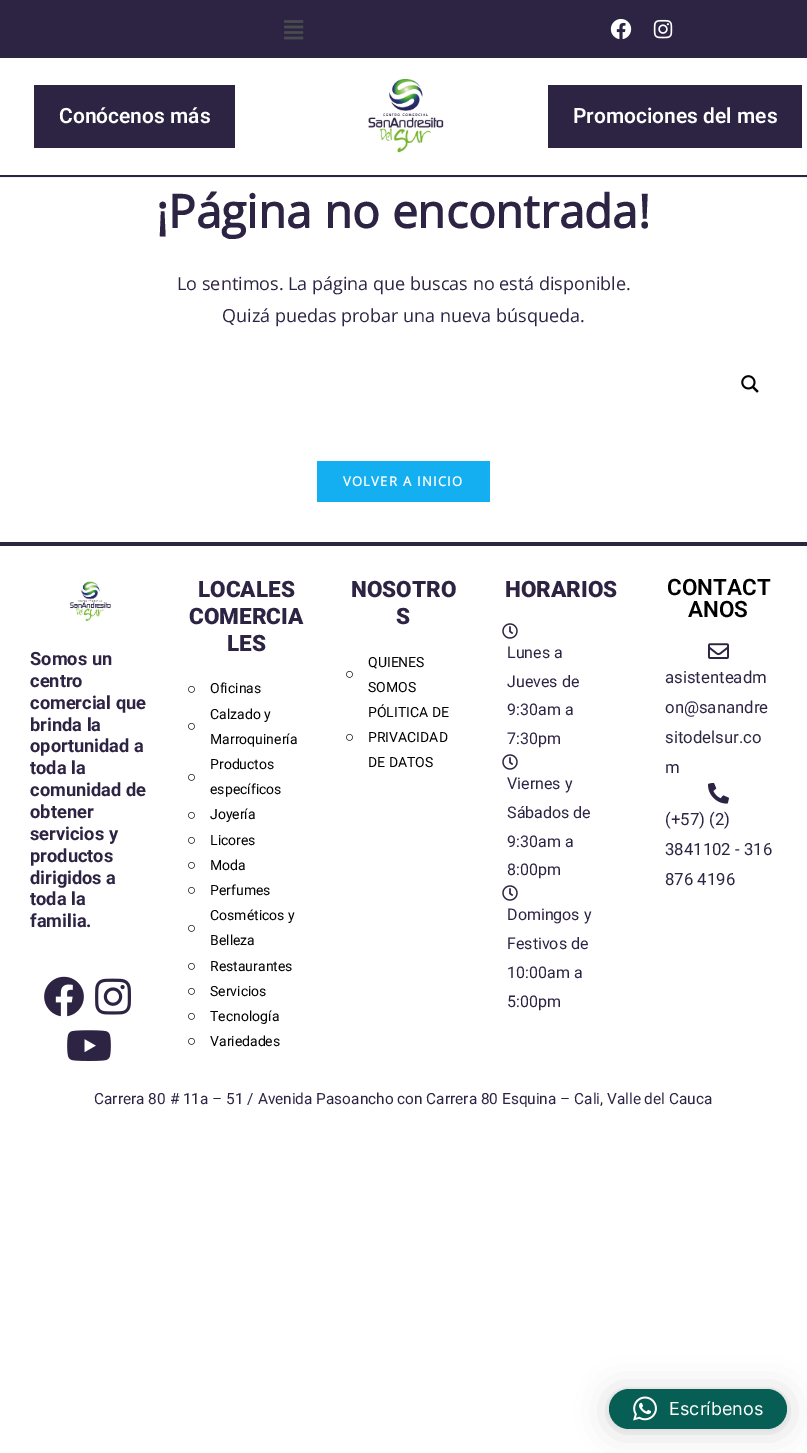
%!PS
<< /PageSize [807 1453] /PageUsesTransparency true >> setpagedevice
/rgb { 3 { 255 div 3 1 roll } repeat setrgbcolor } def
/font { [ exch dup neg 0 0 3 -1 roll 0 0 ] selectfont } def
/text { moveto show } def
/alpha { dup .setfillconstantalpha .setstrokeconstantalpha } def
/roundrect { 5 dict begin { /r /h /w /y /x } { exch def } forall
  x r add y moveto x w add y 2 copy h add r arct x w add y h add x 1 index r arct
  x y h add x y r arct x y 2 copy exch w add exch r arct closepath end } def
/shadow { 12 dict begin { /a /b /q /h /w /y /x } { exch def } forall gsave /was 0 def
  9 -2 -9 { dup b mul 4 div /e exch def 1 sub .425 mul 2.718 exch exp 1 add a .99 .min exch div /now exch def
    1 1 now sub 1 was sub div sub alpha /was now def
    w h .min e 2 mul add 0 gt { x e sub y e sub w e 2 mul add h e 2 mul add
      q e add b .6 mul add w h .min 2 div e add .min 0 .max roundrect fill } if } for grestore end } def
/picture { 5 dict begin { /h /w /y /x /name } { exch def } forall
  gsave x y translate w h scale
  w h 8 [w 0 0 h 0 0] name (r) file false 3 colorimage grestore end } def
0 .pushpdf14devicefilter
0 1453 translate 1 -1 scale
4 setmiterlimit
255 255 255 rgb
0 0 807 1453 rectfill
241 241 241 rgb
0 177 807 1 rectfill
45 36 67 rgb
0 0 807 177 rectfill
(img_01.rgb) 284 20 20 20 picture
(img_02.rgb) 610 19 22 21 picture
(img_03.rgb) 653 19 20 20 picture
255 255 255 rgb
0 58 807 117 rectfill
45 36 67 rgb
34 85 201 63 rectfill
(img_04.rgb) 368 78 76 75 picture
548 85 254 63 rectfill
(img_05.rgb) 741 375 18 18 picture
19 175 240 rgb
317 461 173 41 rectfill
45 36 67 rgb
0 542 807 4 rectfill
(img_06.rgb) 69 581 43 41 picture
(img_07.rgb) 44 976 40 41 picture
(img_08.rgb) 95 978 36 37 picture
(img_09.rgb) 67 1030 44 31 picture
(img_10.rgb) 188 686 7 7 picture
(img_10.rgb) 188 723 7 7 picture
(img_10.rgb) 188 774 7 7 picture
(img_10.rgb) 188 812 7 7 picture
(img_10.rgb) 188 837 7 7 picture
(img_10.rgb) 188 862 7 7 picture
(img_10.rgb) 188 887 7 7 picture
(img_10.rgb) 188 925 7 7 picture
(img_10.rgb) 188 963 7 7 picture
(img_10.rgb) 188 988 7 7 picture
(img_10.rgb) 188 1013 7 7 picture
(img_10.rgb) 188 1038 7 7 picture
(img_10.rgb) 346 671 7 7 picture
(img_10.rgb) 346 734 7 7 picture
(img_11.rgb) 502 623 16 16 picture
(img_11.rgb) 502 754 16 16 picture
(img_11.rgb) 502 885 16 16 picture
(img_12.rgb) 708 643 21 16 picture
(img_13.rgb) 708 783 21 21 picture
0 0 0 rgb
609 1391 178 40 20 16 0.16 shadow
609 1390 178 40 20 3 0.06 shadow
7 94 84 rgb
609 1389 178 40 20 roundrect fill
(img_14.rgb) 633 1396 24 25 picture
/Roboto-SemiBold 21 font
255 255 255 rgb
(Conócenos más) 59 123 text
(Promociones del mes) 573 123 text
/OpenSans-Bold 46 font
45 36 67 rgb
(¡Página no encontrada!) 156 228 text
/OpenSans-Regular 18 font
(Lo sentimos. La página que buscas no está disponible.) 177 290 text
(Quizá puedas probar una nueva búsqueda.) 222 322 text
/OpenSans-Bold 13 font
255 255 255 rgb
343 486 moveto 1.25 0 (VOLVER A INICIO) ashow
/Roboto-Bold 18.25 font
45 36 67 rgb
(Somos un) 30 665 text
(centro) 30 687 text
(comercial que) 30 709 text
(brinda la) 30 731 text
(oportunidad a) 30 752 text
(toda la) 30 774 text
(comunidad de) 30 796 text
(obtener) 30 818 text
(servicios y) 30 840 text
(productos) 30 862 text
(dirigidos a) 30 884 text
(toda la) 30 905 text
(familia.) 30 927 text
/Roboto-Black 22.5 font
(LOCALES) 198 597 text
(COMERCIA) 189 624 text
(LES) 227 651 text
/Roboto-Regular 14 font
0 0 0 rgb
(Oficinas) 210 693 text
(Calzado y) 210 719 text
(Marroquinería) 210 744 text
(Productos) 210 769 text
(específicos) 210 794 text
(Joyería) 210 819 text
(Licores) 210 845 text
(Moda) 210 870 text
(Perfumes) 210 895 text
(Cosméticos y) 210 920 text
(Belleza) 210 945 text
(Restaurantes) 210 971 text
(Servicios) 210 996 text
(Tecnología) 210 1021 text
(Variedades) 210 1046 text
/Roboto-Black 22.5 font
45 36 67 rgb
(NOSOTRO) 351 597 text
(S) 396 624 text
/Roboto-Regular 14 font
0 0 0 rgb
(QUIENES) 368 667 text
(SOMOS) 368 692 text
(PÓLITICA DE) 368 717 text
(PRIVACIDAD) 368 742 text
(DE DATOS) 368 767 text
/Roboto-Black 22.5 font
45 36 67 rgb
(HORARIOS) 505 597 text
/Roboto-Regular 16 font
(Lunes a) 507 658 text
(Jueves de) 507 687 text
(9:30am a) 507 715 text
(7:30pm) 507 744 text
(Viernes y) 507 789 text
(Sábados de) 507 818 text
(9:30am a) 507 847 text
(8:00pm) 507 875 text
(Domingos y) 507 920 text
(Festivos de) 507 949 text
(10:00am a) 507 978 text
(5:00pm) 507 1007 text
/Roboto-SemiBold 22.5 font
0 0 0 rgb
(CONTACT) 667 595 text
(ANOS) 688 617 text
/Roboto-Regular 16.75 font
45 36 67 rgb
(asistenteadm) 665 683 text
(on@sanandre) 665 713 text
(sitodelsur.co) 665 743 text
(m) 665 773 text
(\(+57\) \(2\)) 665 825 text
(3841102 - 316) 665 855 text
(876 4196) 665 885 text
/Roboto-Regular 15.4 font
(Carrera 80 # 11a – 51 / Avenida Pasoancho con Carrera 80 Esquina – Cali, Valle del Cauca) 94 1104 text
/Inter-Regular 18 font
255 255 255 rgb
(Escríbenos) 669 1415 text
.poppdf14devicefilter showpage
